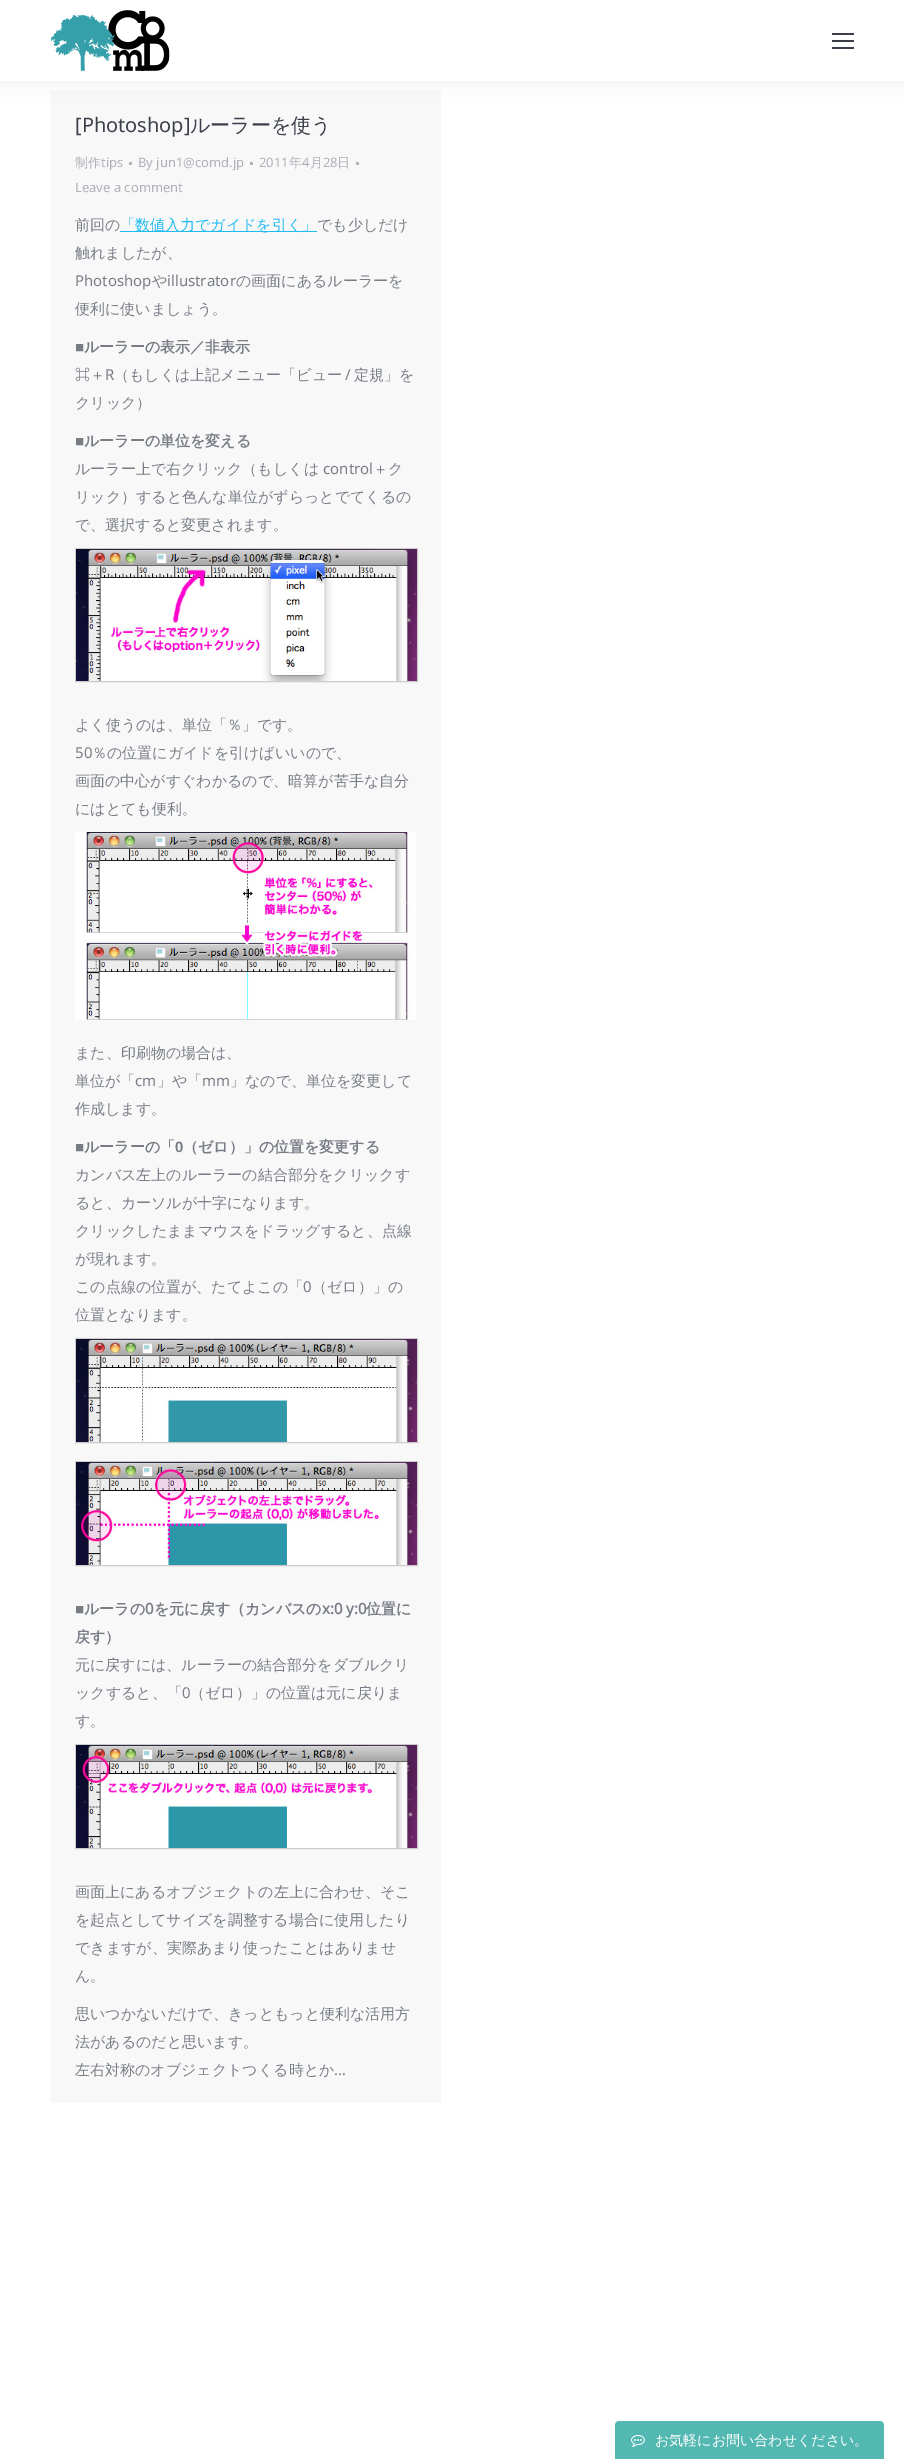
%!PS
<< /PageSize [904 2459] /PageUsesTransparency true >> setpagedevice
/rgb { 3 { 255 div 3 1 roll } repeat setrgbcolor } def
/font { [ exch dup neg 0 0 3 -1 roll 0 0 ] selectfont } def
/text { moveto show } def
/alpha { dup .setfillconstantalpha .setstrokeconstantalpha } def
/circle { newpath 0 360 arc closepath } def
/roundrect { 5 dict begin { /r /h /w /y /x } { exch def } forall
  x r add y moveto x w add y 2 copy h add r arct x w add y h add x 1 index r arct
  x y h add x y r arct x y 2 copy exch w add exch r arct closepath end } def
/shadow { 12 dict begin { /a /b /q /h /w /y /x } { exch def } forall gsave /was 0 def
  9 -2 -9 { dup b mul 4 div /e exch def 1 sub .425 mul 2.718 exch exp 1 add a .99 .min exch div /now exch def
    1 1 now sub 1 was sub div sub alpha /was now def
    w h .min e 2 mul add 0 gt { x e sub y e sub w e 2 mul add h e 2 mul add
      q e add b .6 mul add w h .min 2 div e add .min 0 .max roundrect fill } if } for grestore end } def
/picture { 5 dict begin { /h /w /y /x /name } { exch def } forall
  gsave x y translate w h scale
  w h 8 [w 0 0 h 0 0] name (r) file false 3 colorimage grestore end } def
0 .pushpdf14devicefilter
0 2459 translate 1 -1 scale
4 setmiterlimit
255 255 255 rgb
0 0 904 2459 rectfill
248 248 249 rgb
50 90 391 2013 rectfill
0 0 0 rgb
-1 -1 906 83 0 7.5 0.07 shadow
255 255 255 rgb
0 0 904 81 rectfill
(img_01.rgb) 50 10 120 61 picture
59 63 74 rgb
832 40 22 2 rectfill
832 33 22 2 rectfill
832 47 22 2 rectfill
173 176 182 rgb
130.5 163.5 1.5 circle fill
251.5 163.5 1.5 circle fill
357.5 163.5 1.5 circle fill
30 187 240 rgb
120 231 197 1 rectfill
204 204 204 rgb
75.5 548.5 342 133 rectstroke
(img_02.rgb) 76 549 341 132 picture
(img_03.rgb) 75 832 341 188 picture
75.5 1338.5 342 104 rectstroke
(img_04.rgb) 76 1339 341 103 picture
75.5 1461.5 342 104 rectstroke
(img_05.rgb) 76 1462 341 103 picture
75.5 1744.5 342 104 rectstroke
(img_06.rgb) 76 1745 341 103 picture
83 184 178 rgb
619 2421 moveto 261 0 rlineto 2 0 4 2 4 4 rcurveto 0 34 rlineto -269 0 rlineto 0 -34 rlineto 0 -2 2 -4 4 -4 rcurveto closepath fill
(img_07.rgb) 631 2435 14 12 picture
/NotoSans-Regular 20 font
59 63 74 rgb
([Photoshop]) 75 132 text
/WenQuanYiZenHei-Medium 20 font
(ルーラーを使う) 190 132 text
/WenQuanYiZenHei-Medium 13 font
173 176 182 rgb
(制作) 75 167 text
/NotoSans-Regular 13 font
(tips) 101 167 text
(By jun1@comd.jp) 138 167 text
(2011) 259 167 text
/WenQuanYiZenHei-Medium 13 font
(年) 289 167 text
/NotoSans-Regular 13 font
(4) 302 167 text
/WenQuanYiZenHei-Medium 13 font
(月) 310 167 text
/NotoSans-Regular 13 font
(28) 323 167 text
/WenQuanYiZenHei-Medium 13 font
(日) 337 167 text
/NotoSans-Regular 13 font
(Leave a comment) 75 192 text
/WenQuanYiZenHei-Medium 15 font
120 125 133 rgb
(前回の) 75 230 text
30 187 240 rgb
(「数値入力でガイドを引く」) 120 230 text
120 125 133 rgb
(でも少しだけ) 317 230 text
(触れましたが、) 75 258 text
/NotoSans-Regular 15 font
(Photoshop) 75 286 text
/WenQuanYiZenHei-Medium 15 font
(や) 152 286 text
/NotoSans-Regular 15 font
(illustrator) 167 286 text
/WenQuanYiZenHei-Medium 15 font
(の画面にあるルーラーを) 236 286 text
(便利に使いましょう。) 75 314 text
/LiberationSans-Bold 15 font
(■) 75 352 text
/WenQuanYiZenHei-Bold 15 font
(ルーラーの表示／非表示) 84 352 text
/IPAPGothic-Regular 15 font
(⌘) 75 380 text
/WenQuanYiZenHei-Medium 15 font
(＋) 90 380 text
/NotoSans-Regular 15 font
(R) 105 380 text
/WenQuanYiZenHei-Medium 15 font
(（もしくは上記メニュー「ビュー) 114 380 text
/NotoSans-Regular 15 font
(/) 345 380 text
/WenQuanYiZenHei-Medium 15 font
(定規」を) 354 380 text
(クリック）) 75 408 text
/LiberationSans-Bold 15 font
(■) 75 446 text
/WenQuanYiZenHei-Bold 15 font
(ルーラーの単位を変える) 84 446 text
/WenQuanYiZenHei-Medium 15 font
(ルーラー上で右クリック（もしくは) 75 474 text
/NotoSans-Regular 15 font
(control) 323 474 text
/WenQuanYiZenHei-Medium 15 font
(＋ク) 373 474 text
(リック）すると色んな単位がずらっとでてくるの) 75 502 text
(で、選択すると変更されます。) 75 530 text
(よく使うのは、単位「％」です。) 75 730 text
/NotoSans-Regular 15 font
(50) 75 758 text
/WenQuanYiZenHei-Medium 15 font
(％の位置にガイドを引けばいいので、) 92 758 text
(画面の中心がすぐわかるので、暗算が苦手な自分) 75 786 text
(にはとても便利。) 75 814 text
(また、印刷物の場合は、) 75 1058 text
(単位が「) 75 1086 text
/NotoSans-Regular 15 font
(cm) 135 1086 text
/WenQuanYiZenHei-Medium 15 font
(」や「) 157 1086 text
/NotoSans-Regular 15 font
(mm) 202 1086 text
/WenQuanYiZenHei-Medium 15 font
(」なので、単位を変更して) 230 1086 text
(作成します。) 75 1114 text
/LiberationSans-Bold 15 font
(■) 75 1152 text
/WenQuanYiZenHei-Bold 15 font
(ルーラーの「) 84 1152 text
/LiberationSans-Bold 15 font
(0) 175 1152 text
/WenQuanYiZenHei-Bold 15 font
(（ゼロ）」の位置を変更する) 183 1152 text
/WenQuanYiZenHei-Medium 15 font
(カンバス左上のルーラーの結合部分をクリックす) 75 1180 text
(ると、カーソルが十字になります。) 75 1208 text
(クリックしたままマウスをドラッグすると、点線) 75 1236 text
(が現れます。) 75 1264 text
(この点線の位置が、たてよこの「) 75 1292 text
/NotoSans-Regular 15 font
(0) 303 1292 text
/WenQuanYiZenHei-Medium 15 font
(（ゼロ）」の) 312 1292 text
(位置となります。) 75 1320 text
/LiberationSans-Bold 15 font
(■) 75 1614 text
/WenQuanYiZenHei-Bold 15 font
(ルーラの) 84 1614 text
/NotoSans-Bold 15 font
(0) 145 1614 text
/WenQuanYiZenHei-Bold 15 font
(を元に戻す（カンバスの) 154 1614 text
/NotoSans-Bold 15 font
(x:0 y:0) 322 1614 text
/WenQuanYiZenHei-Bold 15 font
(位置に) 366 1614 text
(戻す）) 75 1642 text
/WenQuanYiZenHei-Medium 15 font
(元に戻すには、ルーラーの結合部分をダブルクリ) 75 1670 text
(ックすると、「) 75 1698 text
/NotoSans-Regular 15 font
(0) 182 1698 text
/WenQuanYiZenHei-Medium 15 font
(（ゼロ）」の位置は元に戻りま) 190 1698 text
(す。) 75 1726 text
(画面上にあるオブジェクトの左上に合わせ、そこ) 75 1897 text
(を起点としてサイズを調整する場合に使用したり) 75 1925 text
(できますが、実際あまり使ったことはありませ) 75 1953 text
(ん。) 75 1981 text
(思いつかないだけで、きっともっと便利な活用方) 75 2019 text
(法があるのだと思います。) 75 2047 text
(左右対称のオブジェクトつくる時とか) 75 2075 text
/NotoSans-Regular 15 font
(…) 334 2075 text
/WenQuanYiZenHei-Medium 14 font
255 255 255 rgb
(お気軽にお問い合わせください。) 655 2445 text
.poppdf14devicefilter showpage
